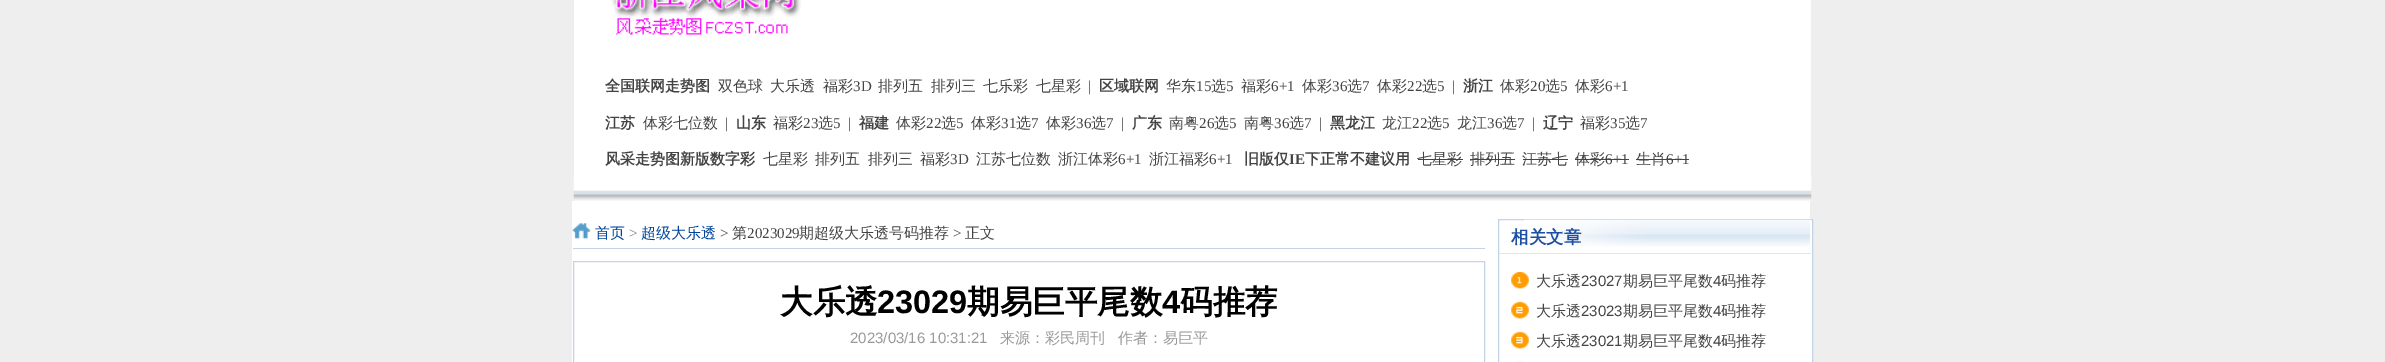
%!PS
<< /PageSize [2385 362] >> setpagedevice
/rgb { 3 { 255 div 3 1 roll } repeat setrgbcolor } def
/font { [ exch dup neg 0 0 3 -1 roll 0 0 ] selectfont } def
/text { moveto show } def
/picture { 5 dict begin { /h /w /y /x /name } { exch def } forall
  gsave x y translate w h scale
  w h 8 [w 0 0 h 0 0] name (r) file false 3 colorimage grestore end } def
0 362 translate 1 -1 scale
4 setmiterlimit
238 238 238 rgb
0 0 2385 362 rectfill
255 255 255 rgb
574 0 1237 68 rectfill
(img_01.rgb) 611 0 190 35 picture
574 68 1237 133 rectfill
68 68 68 rgb
1418 159 45 1 rectfill
1470 159 45 1 rectfill
1523 159 45 1 rectfill
1575 159 54 1 rectfill
1636 159 53 1 rectfill
(img_02.rgb) 573 176 1239 25 picture
255 255 255 rgb
572 201 1238 161 rectfill
(img_03.rgb) 572 223 19 16 picture
195 212 231 rgb
573 248 912 1 rectfill
573.5 261.5 911 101 rectstroke
255 255 255 rgb
1810 220 2 142 rectfill
195 212 231 rgb
1498.5 219.5 314 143 rectstroke
(img_04.rgb) 1524 219 287 28 picture
220 231 243 rgb
1499 253 312 1 rectfill
(img_05.rgb) 1511 272 18 90 picture
/WenQuanYiZenHei-Bold 15 font
68 68 68 rgb
(全国联网走势图) 605 91 text
/WenQuanYiZenHei-Medium 15 font
(双色球) 718 91 text
(大乐透) 770 91 text
(福彩) 823 91 text
/LiberationSerif-Regular 15 font
(3D) 853 91 text
/WenQuanYiZenHei-Medium 15 font
(排列五) 878 91 text
(排列三) 931 91 text
(七乐彩) 983 91 text
(七星彩) 1036 91 text
/LiberationSerif-Regular 15 font
(|) 1088 91 text
/WenQuanYiZenHei-Bold 15 font
(区域联网) 1099 91 text
/WenQuanYiZenHei-Medium 15 font
(华东) 1166 91 text
/LiberationSerif-Regular 15 font
(15) 1196 91 text
/WenQuanYiZenHei-Medium 15 font
(选) 1211 91 text
/LiberationSerif-Regular 15 font
(5) 1226 91 text
/WenQuanYiZenHei-Medium 15 font
(福彩) 1241 91 text
/LiberationSerif-Regular 15 font
(6+1) 1271 91 text
/WenQuanYiZenHei-Medium 15 font
(体彩) 1302 91 text
/LiberationSerif-Regular 15 font
(36) 1332 91 text
/WenQuanYiZenHei-Medium 15 font
(选) 1347 91 text
/LiberationSerif-Regular 15 font
(7) 1362 91 text
/WenQuanYiZenHei-Medium 15 font
(体彩) 1377 91 text
/LiberationSerif-Regular 15 font
(22) 1407 91 text
/WenQuanYiZenHei-Medium 15 font
(选) 1422 91 text
/LiberationSerif-Regular 15 font
(5) 1437 91 text
(|) 1452 91 text
/WenQuanYiZenHei-Bold 15 font
(浙江) 1463 91 text
/WenQuanYiZenHei-Medium 15 font
(体彩) 1500 91 text
/LiberationSerif-Regular 15 font
(20) 1530 91 text
/WenQuanYiZenHei-Medium 15 font
(选) 1545 91 text
/LiberationSerif-Regular 15 font
(5) 1560 91 text
/WenQuanYiZenHei-Medium 15 font
(体彩) 1575 91 text
/LiberationSerif-Regular 15 font
(6+1) 1605 91 text
/WenQuanYiZenHei-Bold 15 font
(江苏) 605 128 text
/WenQuanYiZenHei-Medium 15 font
(体彩七位数) 643 128 text
/LiberationSerif-Regular 15 font
(|) 725 128 text
/WenQuanYiZenHei-Bold 15 font
(山东) 736 128 text
/WenQuanYiZenHei-Medium 15 font
(福彩) 773 128 text
/LiberationSerif-Regular 15 font
(23) 803 128 text
/WenQuanYiZenHei-Medium 15 font
(选) 818 128 text
/LiberationSerif-Regular 15 font
(5) 833 128 text
(|) 848 128 text
/WenQuanYiZenHei-Bold 15 font
(福建) 859 128 text
/WenQuanYiZenHei-Medium 15 font
(体彩) 896 128 text
/LiberationSerif-Regular 15 font
(22) 926 128 text
/WenQuanYiZenHei-Medium 15 font
(选) 941 128 text
/LiberationSerif-Regular 15 font
(5) 956 128 text
/WenQuanYiZenHei-Medium 15 font
(体彩) 971 128 text
/LiberationSerif-Regular 15 font
(31) 1001 128 text
/WenQuanYiZenHei-Medium 15 font
(选) 1016 128 text
/LiberationSerif-Regular 15 font
(7) 1031 128 text
/WenQuanYiZenHei-Medium 15 font
(体彩) 1046 128 text
/LiberationSerif-Regular 15 font
(36) 1076 128 text
/WenQuanYiZenHei-Medium 15 font
(选) 1091 128 text
/LiberationSerif-Regular 15 font
(7) 1106 128 text
(|) 1121 128 text
/WenQuanYiZenHei-Bold 15 font
(广东) 1132 128 text
/WenQuanYiZenHei-Medium 15 font
(南粤) 1169 128 text
/LiberationSerif-Regular 15 font
(26) 1199 128 text
/WenQuanYiZenHei-Medium 15 font
(选) 1214 128 text
/LiberationSerif-Regular 15 font
(5) 1229 128 text
/WenQuanYiZenHei-Medium 15 font
(南粤) 1244 128 text
/LiberationSerif-Regular 15 font
(36) 1274 128 text
/WenQuanYiZenHei-Medium 15 font
(选) 1289 128 text
/LiberationSerif-Regular 15 font
(7) 1304 128 text
(|) 1319 128 text
/WenQuanYiZenHei-Bold 15 font
(黑龙江) 1330 128 text
/WenQuanYiZenHei-Medium 15 font
(龙江) 1382 128 text
/LiberationSerif-Regular 15 font
(22) 1412 128 text
/WenQuanYiZenHei-Medium 15 font
(选) 1427 128 text
/LiberationSerif-Regular 15 font
(5) 1442 128 text
/WenQuanYiZenHei-Medium 15 font
(龙江) 1457 128 text
/LiberationSerif-Regular 15 font
(36) 1487 128 text
/WenQuanYiZenHei-Medium 15 font
(选) 1502 128 text
/LiberationSerif-Regular 15 font
(7) 1517 128 text
(|) 1532 128 text
/WenQuanYiZenHei-Bold 15 font
(辽宁) 1543 128 text
/WenQuanYiZenHei-Medium 15 font
(福彩) 1580 128 text
/LiberationSerif-Regular 15 font
(35) 1610 128 text
/WenQuanYiZenHei-Medium 15 font
(选) 1625 128 text
/LiberationSerif-Regular 15 font
(7) 1640 128 text
/WenQuanYiZenHei-Bold 15 font
(风采走势图新版数字彩) 605 164 text
/WenQuanYiZenHei-Medium 15 font
(七星彩) 763 164 text
(排列五) 815 164 text
(排列三) 868 164 text
(福彩) 920 164 text
/LiberationSerif-Regular 15 font
(3D) 950 164 text
/WenQuanYiZenHei-Medium 15 font
(江苏七位数) 976 164 text
(浙江体彩) 1058 164 text
/LiberationSerif-Regular 15 font
(6+1) 1118 164 text
/WenQuanYiZenHei-Medium 15 font
(浙江福彩) 1149 164 text
/LiberationSerif-Regular 15 font
(6+1) 1209 164 text
/WenQuanYiZenHei-Bold 15 font
(旧版仅) 1244 164 text
/LiberationSerif-Bold 15 font
(IE) 1289 164 text
/WenQuanYiZenHei-Bold 15 font
(下正常不建议用) 1305 164 text
/WenQuanYiZenHei-Medium 15 font
(七星彩) 1417 164 text
(排列五) 1470 164 text
(江苏七) 1522 164 text
(体彩) 1575 164 text
/LiberationSerif-Regular 15 font
(6+1) 1605 164 text
/WenQuanYiZenHei-Medium 15 font
(生肖) 1636 164 text
/LiberationSerif-Regular 15 font
(6+1) 1666 164 text
/WenQuanYiZenHei-Medium 15 font
0 68 153 rgb
(首页) 595 238 text
/LiberationSerif-Regular 15 font
126 126 126 rgb
(>) 629 238 text
/WenQuanYiZenHei-Medium 15 font
0 68 153 rgb
(超级大乐透) 641 238 text
/LiberationSerif-Regular 15 font
68 68 68 rgb
(>) 720 238 text
/WenQuanYiZenHei-Medium 15 font
(第) 732 238 text
/LiberationSerif-Regular 15 font
(2023029) 747 238 text
/WenQuanYiZenHei-Medium 15 font
(期超级大乐透号码推荐) 799 238 text
/LiberationSerif-Regular 15 font
(>) 953 238 text
/WenQuanYiZenHei-Medium 15 font
(正文) 965 238 text
/WenQuanYiZenHei-Bold 32.5 font
0 0 0 rgb
(大乐透) 780 313 text
/LiberationSans-Bold 32.5 font
(23029) 877 313 text
/WenQuanYiZenHei-Bold 32.5 font
(期易巨平尾数) 967 313 text
/LiberationSans-Bold 32.5 font
(4) 1162 313 text
/WenQuanYiZenHei-Bold 32.5 font
(码推荐) 1180 313 text
/LiberationSans-Regular 15 font
153 153 153 rgb
(2023/03/16 10:31:21) 850 343 text
/WenQuanYiZenHei-Medium 15 font
(来源：彩民周刊) 1000 343 text
(作者：易巨平) 1118 343 text
/WenQuanYiZenHei-Bold 17.5 font
30 80 162 rgb
(相关文章) 1511 243 text
/WenQuanYiZenHei-Medium 15 font
68 68 68 rgb
(大乐透) 1536 286 text
/LiberationSans-Regular 15 font
(23027) 1581 286 text
/WenQuanYiZenHei-Medium 15 font
(期易巨平尾数) 1623 286 text
/LiberationSans-Regular 15 font
(4) 1713 286 text
/WenQuanYiZenHei-Medium 15 font
(码推荐) 1721 286 text
(大乐透) 1536 316 text
/LiberationSans-Regular 15 font
(23023) 1581 316 text
/WenQuanYiZenHei-Medium 15 font
(期易巨平尾数) 1623 316 text
/LiberationSans-Regular 15 font
(4) 1713 316 text
/WenQuanYiZenHei-Medium 15 font
(码推荐) 1721 316 text
(大乐透) 1536 346 text
/LiberationSans-Regular 15 font
(23021) 1581 346 text
/WenQuanYiZenHei-Medium 15 font
(期易巨平尾数) 1623 346 text
/LiberationSans-Regular 15 font
(4) 1713 346 text
/WenQuanYiZenHei-Medium 15 font
(码推荐) 1721 346 text
showpage
